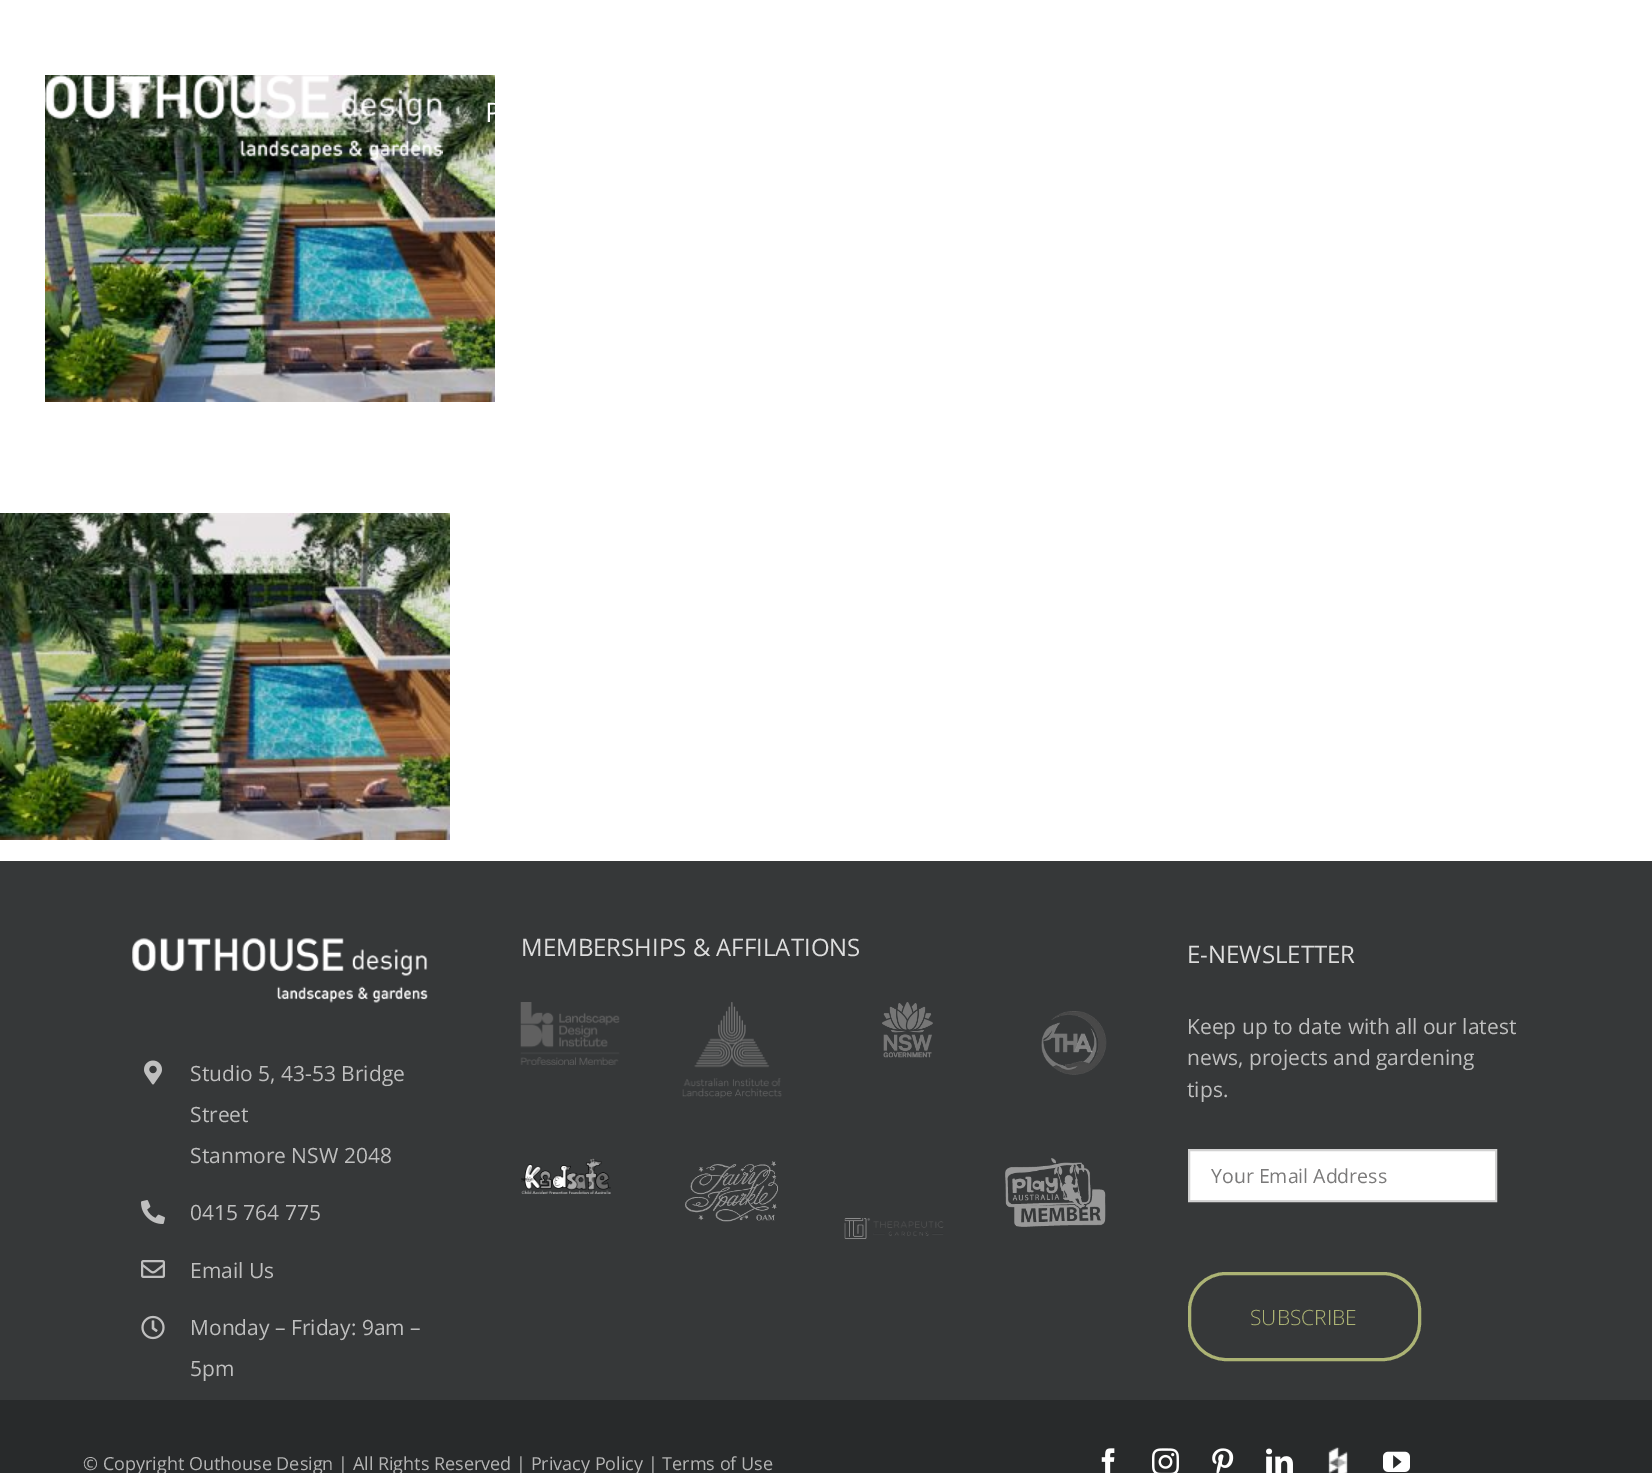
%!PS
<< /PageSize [1652 1473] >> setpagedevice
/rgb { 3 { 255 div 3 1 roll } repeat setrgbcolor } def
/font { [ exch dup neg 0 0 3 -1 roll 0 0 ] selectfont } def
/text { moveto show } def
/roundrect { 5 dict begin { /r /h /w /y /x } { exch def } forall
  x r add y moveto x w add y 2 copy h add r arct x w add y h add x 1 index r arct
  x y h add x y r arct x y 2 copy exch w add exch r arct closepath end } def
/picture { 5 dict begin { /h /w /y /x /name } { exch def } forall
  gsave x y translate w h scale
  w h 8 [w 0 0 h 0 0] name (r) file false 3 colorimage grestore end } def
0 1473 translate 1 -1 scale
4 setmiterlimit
255 255 255 rgb
0 0 1652 1473 rectfill
(img_01.rgb) 45 75 450 327 picture
(img_02.rgb) 45 75 398 86 picture
(img_01.rgb) 0 513 450 327 picture
54 56 57 rgb
0 861 1652 539 rectfill
(img_03.rgb) 132 938 296 65 picture
(img_04.rgb) 144 1060 18 25 picture
(img_05.rgb) 141 1200 24 24 picture
(img_06.rgb) 141 1260 24 18 picture
(img_07.rgb) 141 1315 24 25 picture
(img_08.rgb) 520 1002 100 63 picture
(img_09.rgb) 682 1002 100 96 picture
(img_10.rgb) 882 1002 51 56 picture
(img_11.rgb) 1041 1011 66 64 picture
(img_12.rgb) 521 1158 90 36 picture
(img_13.rgb) 685 1161 93 61 picture
(img_14.rgb) 1005 1158 101 69 picture
(img_15.rgb) 844 1218 100 21 picture
255 255 255 rgb
1189 1150 moveto 307 0 rlineto 0 51 rlineto -307 0 rlineto closepath gsave fill grestore
210 210 210 rgb
2 setlinewidth
stroke
172 179 116 rgb
3 setlinewidth
1189.5 1273.5 230 86 36.5 roundrect stroke
40 42 43 rgb
0 1400 1652 73 rectfill
(img_16.rgb) 1101 1448 14 25 picture
(img_17.rgb) 1152 1448 27 25 picture
(img_18.rgb) 1212 1448 22 25 picture
(img_19.rgb) 1266 1448 27 25 picture
(img_20.rgb) 1328 1447 20 26 picture
(img_21.rgb) 1383 1451 27 21 picture
/OpenSans-Regular 27 font
255 255 255 rgb
(P) 485 122 text
/OpenSans-Regular 21 font
191 191 191 rgb
(Studio 5, 43-53 Bridge) 190 1081 text
(Street) 190 1122 text
(Stanmore NSW 2048) 190 1163 text
(0415 764 775) 190 1220 text
(Email Us) 190 1278 text
(Monday – Friday: 9am –) 190 1335 text
(5pm) 190 1376 text
/OpenSans-Regular 24 font
221 221 221 rgb
(MEMBERSHIPS & AFFILATIONS) 521 956 text
(E-NEWSLETTER) 1187 963 text
/OpenSans-Regular 21 font
191 191 191 rgb
(Keep up to date with all our latest) 1187 1034 text
(news, projects and gardening) 1187 1065 text
(tips.) 1187 1097 text
/OpenSans-Regular 19.5 font
122 121 121 rgb
(Your Email Address) 1211 1183 text
/OpenSans-Light 21 font
172 179 116 rgb
(SUBSCRIBE) 1250 1325 text
/OpenSans-Regular 18 font
181 181 181 rgb
(© Copyright Outhouse Design | All Rights Reserved | Privacy Policy | Terms of Use) 83 1470 text
showpage
